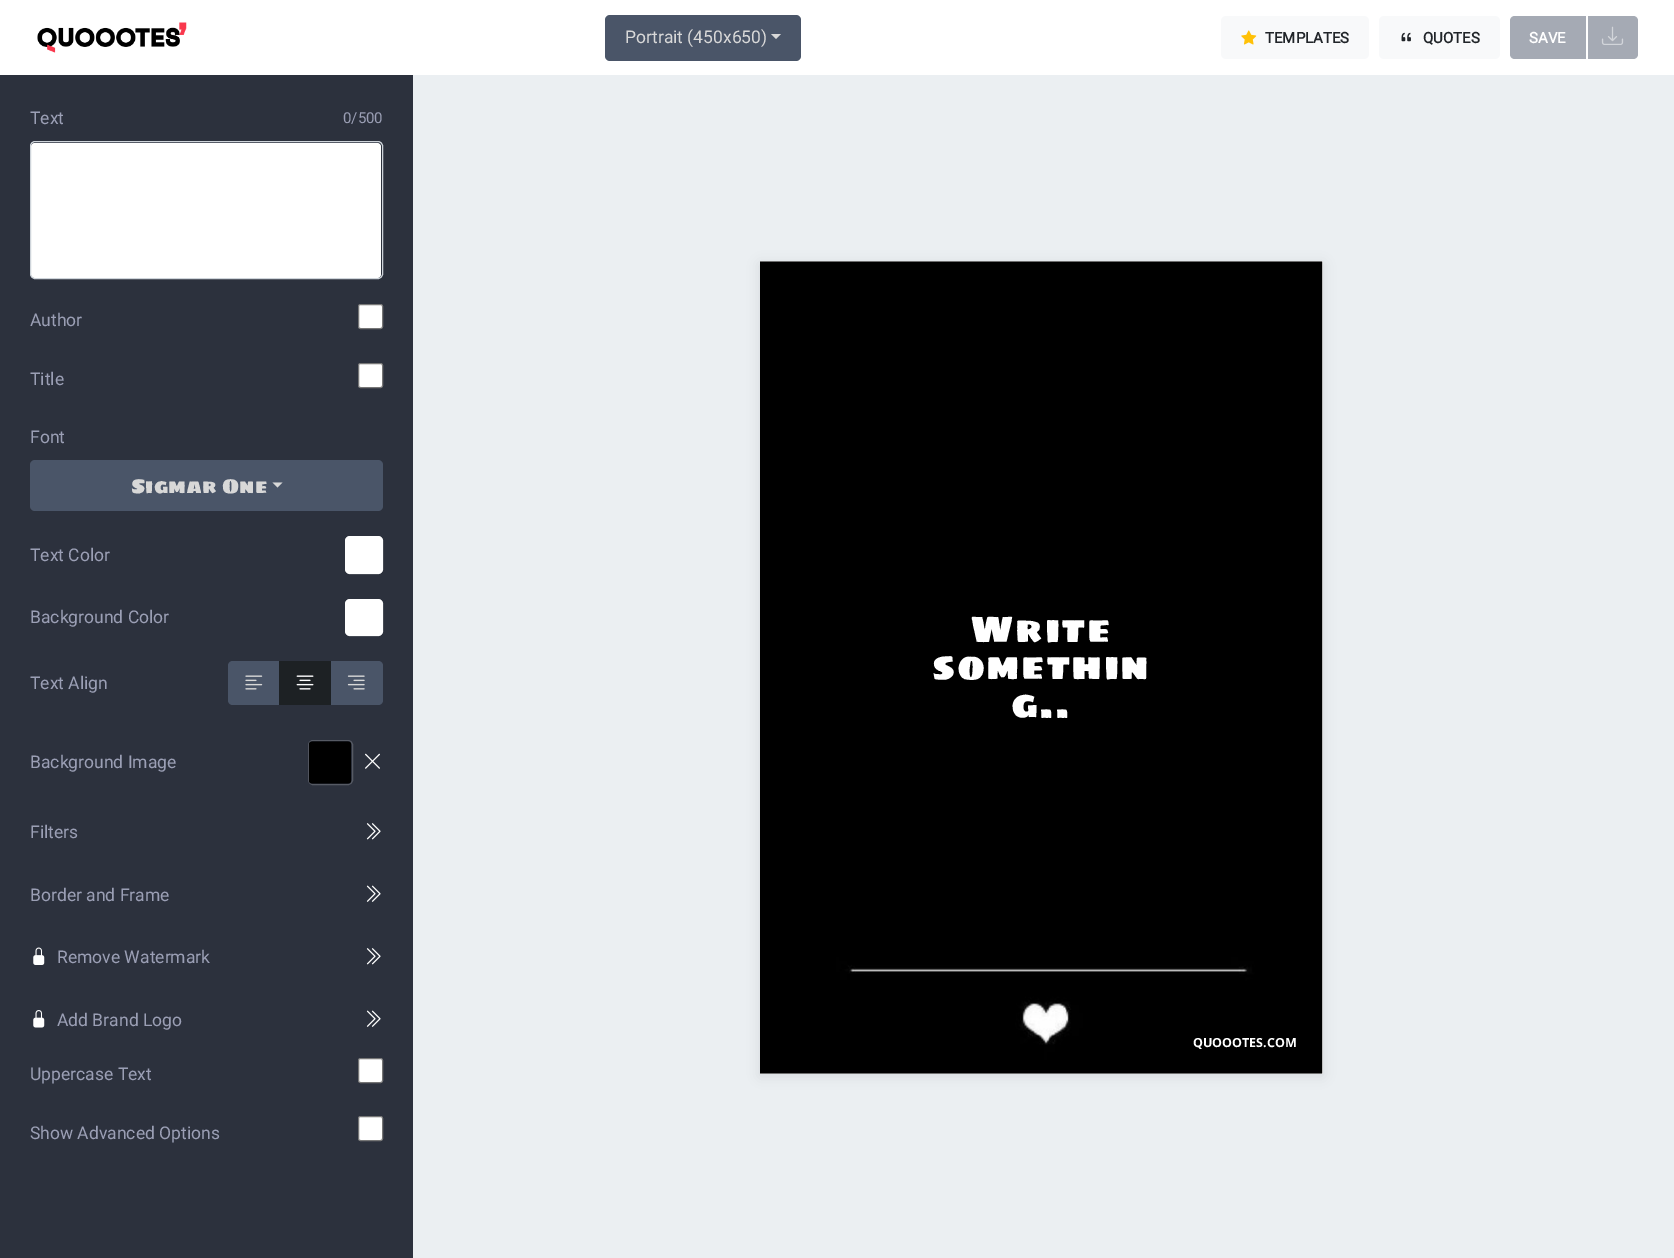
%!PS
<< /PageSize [1674 1258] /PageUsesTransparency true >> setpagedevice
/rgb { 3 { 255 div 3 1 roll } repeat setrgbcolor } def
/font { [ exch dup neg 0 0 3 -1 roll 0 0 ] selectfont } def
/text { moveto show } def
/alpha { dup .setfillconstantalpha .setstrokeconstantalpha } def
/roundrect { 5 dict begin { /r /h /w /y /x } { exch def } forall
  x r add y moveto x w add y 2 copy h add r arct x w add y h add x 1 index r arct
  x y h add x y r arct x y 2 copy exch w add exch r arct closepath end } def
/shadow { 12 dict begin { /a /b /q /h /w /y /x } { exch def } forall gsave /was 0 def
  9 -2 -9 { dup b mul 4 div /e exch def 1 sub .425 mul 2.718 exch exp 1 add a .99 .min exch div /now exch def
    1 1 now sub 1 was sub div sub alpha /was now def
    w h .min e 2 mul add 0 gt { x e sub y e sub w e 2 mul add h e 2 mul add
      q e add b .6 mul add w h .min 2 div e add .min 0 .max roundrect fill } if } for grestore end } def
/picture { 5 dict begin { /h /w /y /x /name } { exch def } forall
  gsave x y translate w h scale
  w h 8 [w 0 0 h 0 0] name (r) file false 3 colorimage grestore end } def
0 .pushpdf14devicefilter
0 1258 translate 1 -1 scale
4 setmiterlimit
235 239 242 rgb
0 0 1674 1258 rectfill
255 255 255 rgb
0 0 1674 75 rectfill
(img_01.rgb) 37 22 150 31 picture
74 85 104 rgb
605 15 196 46 5 roundrect fill
216 216 216 rgb
771 34 moveto 10 0 rlineto -5 5 rlineto closepath fill
248 249 250 rgb
1221 16 148 43 5 roundrect fill
(img_02.rgb) 1241 30 16 15 picture
1379 16 121 43 5 roundrect fill
(img_03.rgb) 1401 32 10 10 picture
165 170 180 rgb
1515 16 moveto 71 0 rlineto 0 43 rlineto -71 0 rlineto -3 0 -5 -2 -5 -5 rcurveto 0 -33 rlineto 0 -3 2 -5 5 -5 rcurveto closepath fill
1588 16 moveto 45 0 rlineto 3 0 5 2 5 5 rcurveto 0 33 rlineto 0 3 -2 5 -5 5 rcurveto -45 0 rlineto closepath fill
(img_04.rgb) 1601 26 23 19 picture
44 49 61 rgb
0 75 413 1183 rectfill
255 255 255 rgb
31 143 350 135 4 roundrect fill
206 212 218 rgb
30.5 141.5 352 137 4.5 roundrect stroke
255 255 255 rgb
358.5 304.5 24 24 2 roundrect gsave fill grestore
118 118 118 rgb
stroke
255 255 255 rgb
358.5 363.5 24 24 2 roundrect gsave fill grestore
118 118 118 rgb
stroke
74 85 104 rgb
30 460 353 51 5 roundrect fill
216 216 216 rgb
272.5 482.5 moveto 10 0 rlineto -5 5 rlineto closepath fill
255 255 255 rgb
345 536 38 38 5 roundrect fill
0.47 alpha
345.5 536.5 37 37 4.5 roundrect stroke
1 alpha
345 599 38 37 5 roundrect fill
0.47 alpha
345.5 599.5 37 36 4.5 roundrect stroke
1 alpha
74 85 104 rgb
233 661 moveto 47 0 rlineto 0 44 rlineto -47 0 rlineto -3 0 -5 -2 -5 -5 rcurveto 0 -34 rlineto 0 -3 2 -5 5 -5 rcurveto closepath fill
(img_05.rgb) 245 675 18 15 picture
330 661 moveto 48 0 rlineto 3 0 5 2 5 5 rcurveto 0 34 rlineto 0 3 -2 5 -5 5 rcurveto -48 0 rlineto closepath fill
29 33 36 rgb
279 661 52 44 rectfill
(img_06.rgb) 296 675 18 15 picture
(img_07.rgb) 347 675 18 15 picture
86 90 100 rgb
308.5 740.5 44 44 4.5 roundrect stroke
(img_08.rgb) 308 741 43 43 picture
(img_09.rgb) 365 753 15 16 picture
(img_10.rgb) 366 823 15 17 picture
(img_11.rgb) 366 885 15 17 picture
(img_12.rgb) 33 947 12 18 picture
(img_10.rgb) 366 948 15 17 picture
(img_13.rgb) 33 1010 12 18 picture
(img_11.rgb) 366 1010 15 17 picture
255 255 255 rgb
358.5 1058.5 24 24 2 roundrect gsave fill grestore
118 118 118 rgb
stroke
255 255 255 rgb
358.5 1116.5 24 24 2 roundrect gsave fill grestore
118 118 118 rgb
stroke
13 19 43 rgb
760 264 563 812 0 6 0.1 shadow
255 255 255 rgb
760 261 563 813 rectfill
(img_14.rgb) 760 261 563 813 picture
/Roboto-Regular 17.5 font
216 216 216 rgb
(Portrait \(450x650\)) 625 43 text
/Roboto-Bold 15 font
33 37 41 rgb
(TEMPLATES) 1265 43 text
(QUOTES) 1423 43 text
255 255 255 rgb
(SAVE) 1529 43 text
/Roboto-Regular 17.5 font
155 159 181 rgb
(Text) 30 124 text
/Roboto-Regular 15 font
(0/500) 343 123 text
/Roboto-Regular 17.5 font
(Author) 30 326 text
(Title) 30 385 text
(Font) 30 443 text
/SigmarOne-Regular 20 font
216 216 216 rgb
(Sigmar One) 131 493 text
/Roboto-Regular 17.5 font
155 159 181 rgb
(Text Color) 30 561 text
(Background Color) 30 623 text
(Text Align) 30 689 text
(Background Image) 30 768 text
(Filters) 30 838 text
(Border and Frame) 30 901 text
(Remove Watermark) 57 963 text
(Add Brand Logo) 57 1026 text
(Uppercase Text) 30 1080 text
(Show Advanced Options) 30 1139 text
/SigmarOne-Regular 37.5 font
255 255 255 rgb
970 642 moveto 1.25 0 (Write) ashow
932 679 moveto 1.25 0 (somethin) ashow
1011 717 moveto 1.25 0 (g..) ashow
/OpenSans-Bold 12.5 font
(QUOOOTES.COM) 1193 1047 text
.poppdf14devicefilter showpage
